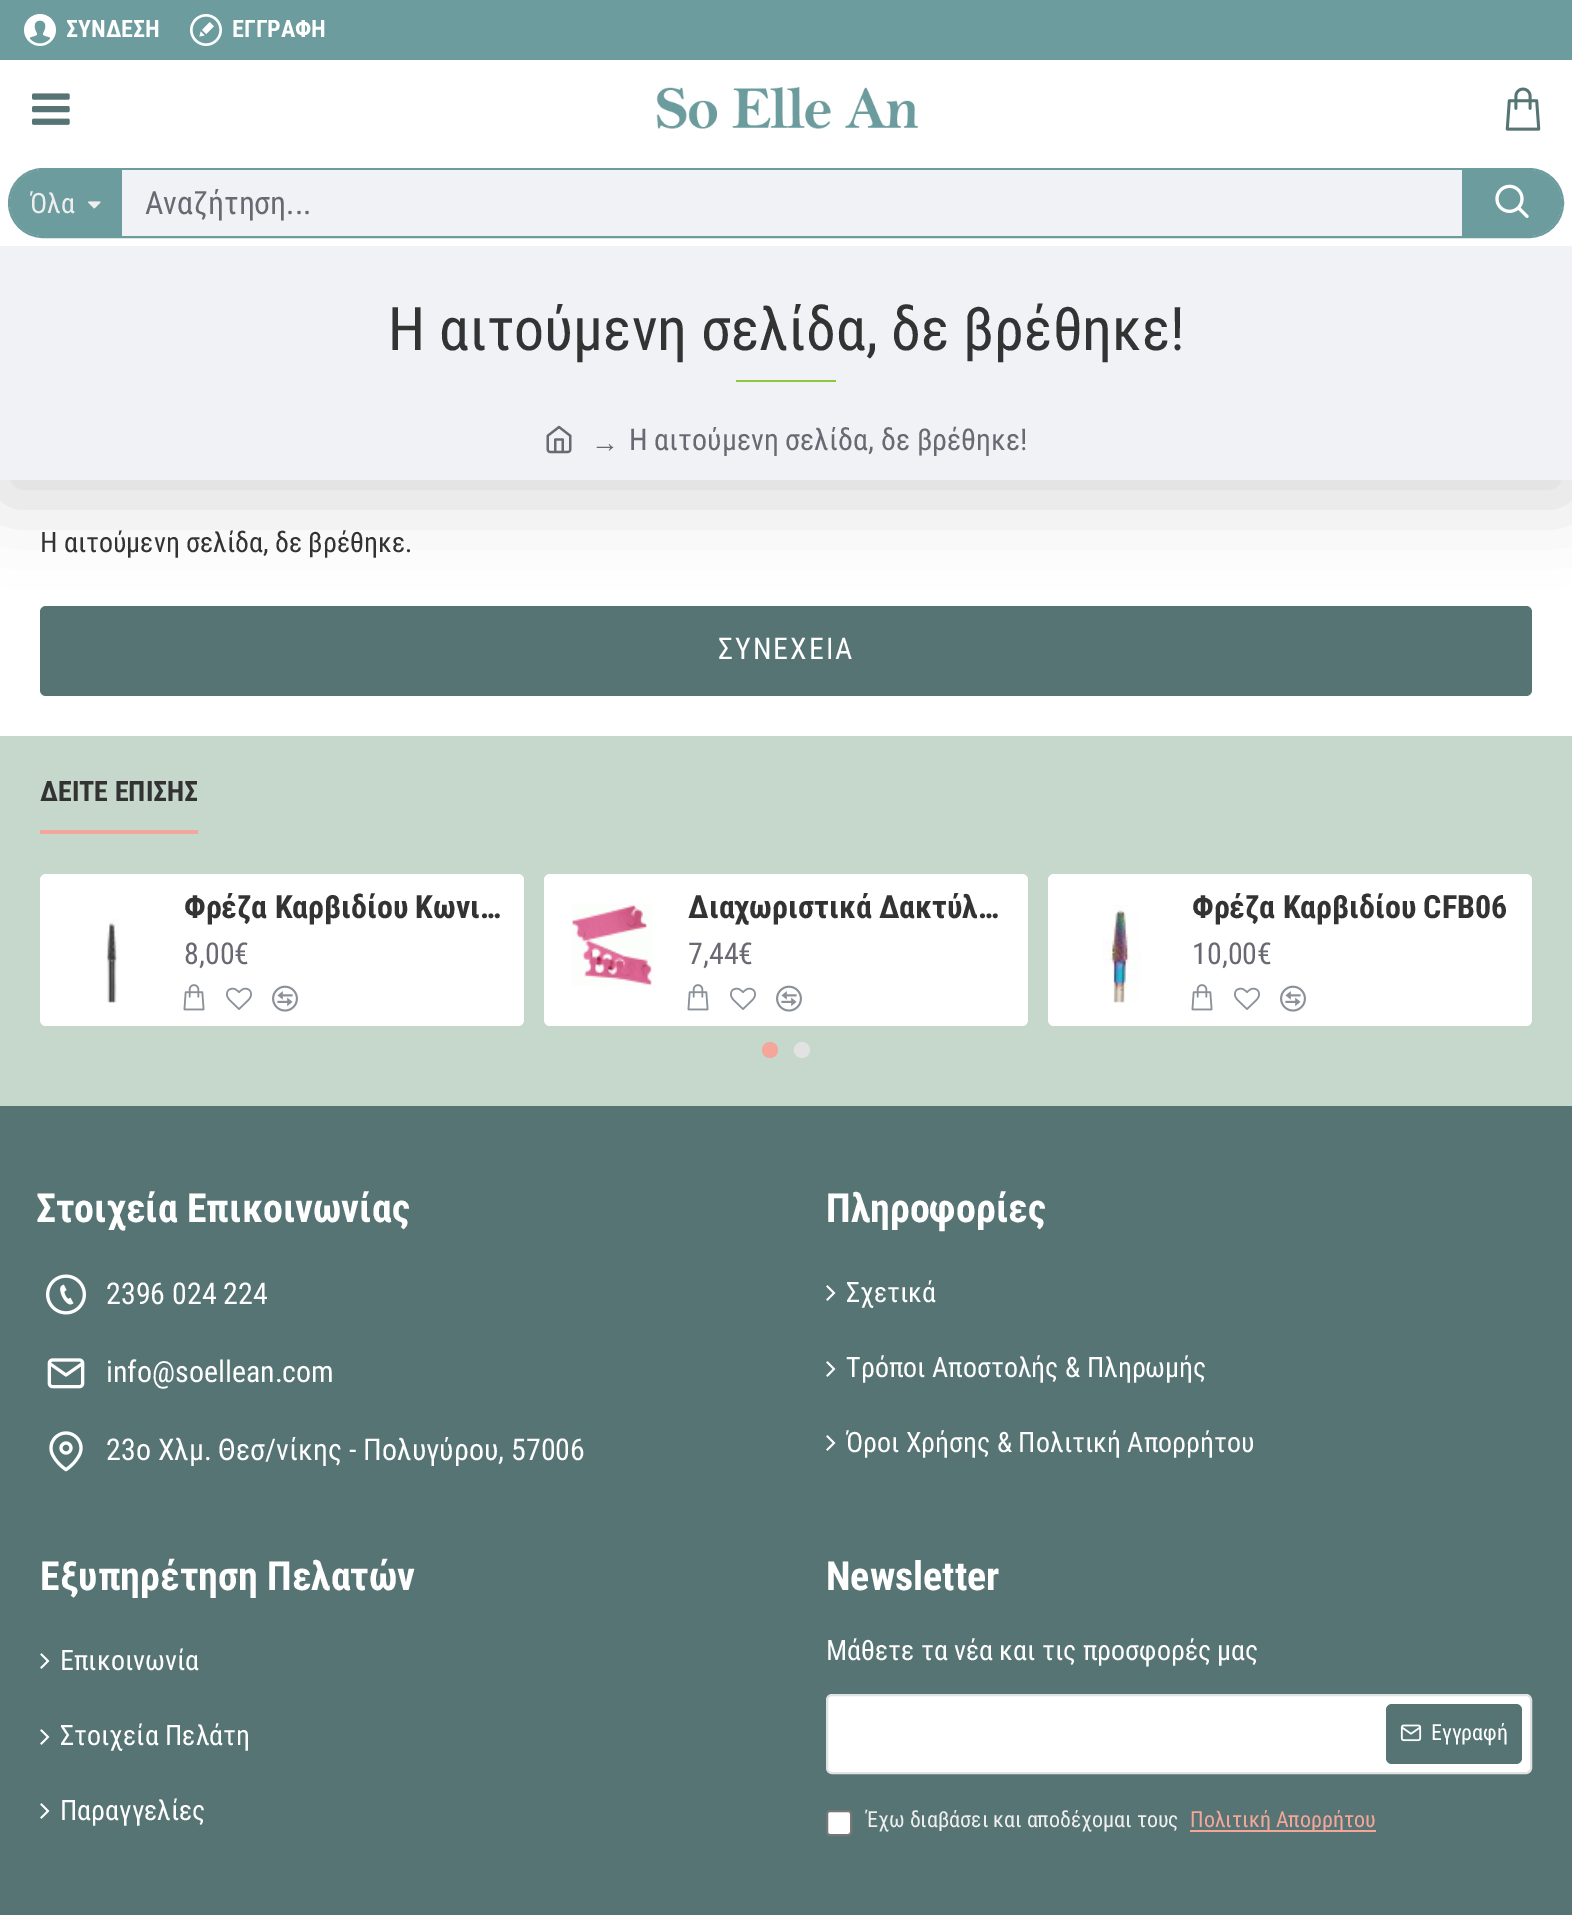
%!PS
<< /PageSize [1572 1915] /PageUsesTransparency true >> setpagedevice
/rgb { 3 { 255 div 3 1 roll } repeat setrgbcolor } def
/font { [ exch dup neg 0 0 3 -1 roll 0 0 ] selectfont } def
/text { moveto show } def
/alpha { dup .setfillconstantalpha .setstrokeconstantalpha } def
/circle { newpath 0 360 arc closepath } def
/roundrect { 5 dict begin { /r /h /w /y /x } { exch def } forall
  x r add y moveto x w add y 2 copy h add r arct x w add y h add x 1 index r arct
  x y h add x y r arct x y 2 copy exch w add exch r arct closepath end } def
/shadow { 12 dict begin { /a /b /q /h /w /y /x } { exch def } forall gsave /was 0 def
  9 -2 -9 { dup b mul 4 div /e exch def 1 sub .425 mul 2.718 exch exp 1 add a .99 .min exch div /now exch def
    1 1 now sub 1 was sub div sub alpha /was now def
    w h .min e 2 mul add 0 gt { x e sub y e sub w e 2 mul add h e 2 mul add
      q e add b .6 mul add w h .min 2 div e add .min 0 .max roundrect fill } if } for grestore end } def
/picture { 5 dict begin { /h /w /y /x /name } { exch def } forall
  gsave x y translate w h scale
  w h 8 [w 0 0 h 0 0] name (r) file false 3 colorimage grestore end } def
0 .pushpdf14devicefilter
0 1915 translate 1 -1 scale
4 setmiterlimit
255 255 255 rgb
0 0 1572 1915 rectfill
108 156 158 rgb
0 0 1572 60 rectfill
(img_01.rgb) 24 14 32 32 picture
(img_02.rgb) 190 14 32 32 picture
(img_03.rgb) 32 93 38 32 picture
(img_04.rgb) 656 87 263 42 picture
(img_05.rgb) 1505 87 36 44 picture
2 setlinewidth
9 169 1554 68 34 roundrect stroke
43 170 moveto 79 0 rlineto 0 66 rlineto -79 0 rlineto -18 0 -33 -15 -33 -33 rcurveto 0 -18 15 -33 33 -33 rcurveto closepath fill
(img_06.rgb) 88 201 13 8 picture
240 242 245 rgb
122 170 1340 66 rectfill
108 156 158 rgb
1462 170 moveto 67 0 rlineto 18 0 33 15 33 33 rcurveto 0 18 -15 33 -33 33 rcurveto -67 0 rlineto closepath fill
(img_07.rgb) 1495 184 34 34 picture
0 0 0 rgb
0 420 1572 80 0 40 0.15 shadow
240 242 245 rgb
0 246 1572 234 rectfill
141 198 63 rgb
736 380 100 2 rectfill
(img_08.rgb) 546 425 26 29 picture
86 116 116 rgb
40 606 1492 90 6 roundrect fill
0 1106 1572 809 rectfill
198 215 203 rgb
0 736 1572 370 rectfill
244 166 154 rgb
40 830 158 4 rectfill
255 255 255 rgb
40 874 484 152 6 roundrect fill
(img_09.rgb) 106 919 13 84 picture
(img_10.rgb) 183 984 22 27 picture
(img_11.rgb) 226 987 26 23 picture
(img_12.rgb) 272 985 26 27 picture
544 874 484 152 6 roundrect fill
(img_13.rgb) 571 904 82 82 picture
(img_10.rgb) 687 984 22 27 picture
(img_11.rgb) 730 987 26 23 picture
(img_12.rgb) 776 985 26 27 picture
1048 874 484 152 6 roundrect fill
(img_14.rgb) 1103 905 38 98 picture
(img_10.rgb) 1191 984 22 27 picture
(img_11.rgb) 1234 987 26 23 picture
(img_12.rgb) 1280 985 26 27 picture
244 166 154 rgb
770 1050 8 circle fill
226 226 226 rgb
802 1050 8 circle fill
(img_15.rgb) 46 1274 40 41 picture
(img_16.rgb) 47 1358 38 31 picture
(img_17.rgb) 49 1431 34 41 picture
(img_18.rgb) 826 1285 10 16 picture
(img_18.rgb) 826 1361 10 16 picture
(img_18.rgb) 826 1435 10 16 picture
(img_18.rgb) 40 1653 10 16 picture
(img_18.rgb) 40 1729 10 16 picture
(img_18.rgb) 40 1803 10 16 picture
255 255 255 rgb
827 1695 704 78 5 roundrect gsave fill grestore
226 226 226 rgb
stroke
86 116 116 rgb
1386 1704 136 60 6 roundrect fill
(img_19.rgb) 1400 1724 22 18 picture
255 255 255 rgb
827 1811 24 24 3 roundrect gsave fill grestore
118 118 118 rgb
stroke
244 166 154 rgb
1190 1830 186 2 rectfill
/RobotoCondensed-Bold 24 font
255 255 255 rgb
(ΣΥΝΔΕΣΗ) 66 37 text
(ΕΓΓΡΑΦΗ) 232 37 text
/RobotoCondensed-Regular 28 font
238 238 238 rgb
(Όλα) 30 213 text
/RobotoCondensed-Regular 32 font
105 105 115 rgb
(Αναζήτηση...) 145 214 text
/RobotoCondensed-Regular 60 font
51 51 51 rgb
(Η αιτούμενη σελίδα, δε βρέθηκε!) 388 350 text
/LiberationSerif-Regular 28 font
105 105 115 rgb
(→) 591 452 text
/RobotoCondensed-Regular 30 font
(Η αιτούμενη σελίδα, δε βρέθηκε!) 629 450 text
/RobotoCondensed-Regular 28 font
51 51 51 rgb
(Η αιτούμενη σελίδα, δε βρέθηκε.) 40 552 text
/RobotoCondensed-Regular 30 font
255 255 255 rgb
718 659 moveto 2 0 (ΣΥΝΕΧΕΙΑ) ashow
/RobotoCondensed-Bold 28 font
51 51 51 rgb
(ΔΕΙΤΕ ΕΠΙΣΗΣ) 40 801 text
/RobotoCondensed-Bold 32 font
(Φρέζα Καρβιδίου Κωνι…) 184 918 text
/RobotoCondensed-Regular 30 font
105 105 115 rgb
(8,00€) 184 964 text
/RobotoCondensed-Bold 32 font
51 51 51 rgb
(Διαχωριστικά Δακτύλ…) 688 918 text
/RobotoCondensed-Regular 30 font
105 105 115 rgb
(7,44€) 688 964 text
/RobotoCondensed-Bold 32 font
51 51 51 rgb
(Φρέζα Καρβιδίου CFB06) 1192 918 text
/RobotoCondensed-Regular 30 font
105 105 115 rgb
(10,00€) 1192 964 text
/RobotoCondensed-Bold 40 font
255 255 255 rgb
(Στοιχεία Επικοινωνίας) 36 1222 text
/RobotoCondensed-Regular 30 font
(2396 024 224) 106 1304 text
(info@soellean.com) 106 1382 text
(23ο Χλμ. Θεσ/νίκης - Πολυγύρου, 57006) 106 1460 text
/RobotoCondensed-Bold 40 font
(Πληροφορίες) 826 1222 text
/RobotoCondensed-Regular 28 font
(Σχετικά) 846 1302 text
(Τρόποι Αποστολής & Πληρωμής) 846 1377 text
(Όροι Χρήσης & Πολιτική Απορρήτου) 846 1452 text
/RobotoCondensed-Bold 40 font
(Εξυπηρέτηση Πελατών) 40 1590 text
/RobotoCondensed-Regular 28 font
(Επικοινωνία) 60 1670 text
(Στοιχεία Πελάτη) 60 1745 text
(Παραγγελίες) 60 1820 text
/RobotoCondensed-Bold 40 font
(Newsletter) 826 1590 text
/RobotoCondensed-Regular 28 font
(Μάθετε τα νέα και τις προσφορές μας) 826 1660 text
/RobotoCondensed-Regular 22 font
(Εγγραφή) 1431 1740 text
238 238 238 rgb
(Έχω διαβάσει και αποδέχομαι τους) 866 1827 text
244 166 154 rgb
(Πολιτική Απορρήτου) 1190 1827 text
.poppdf14devicefilter showpage
